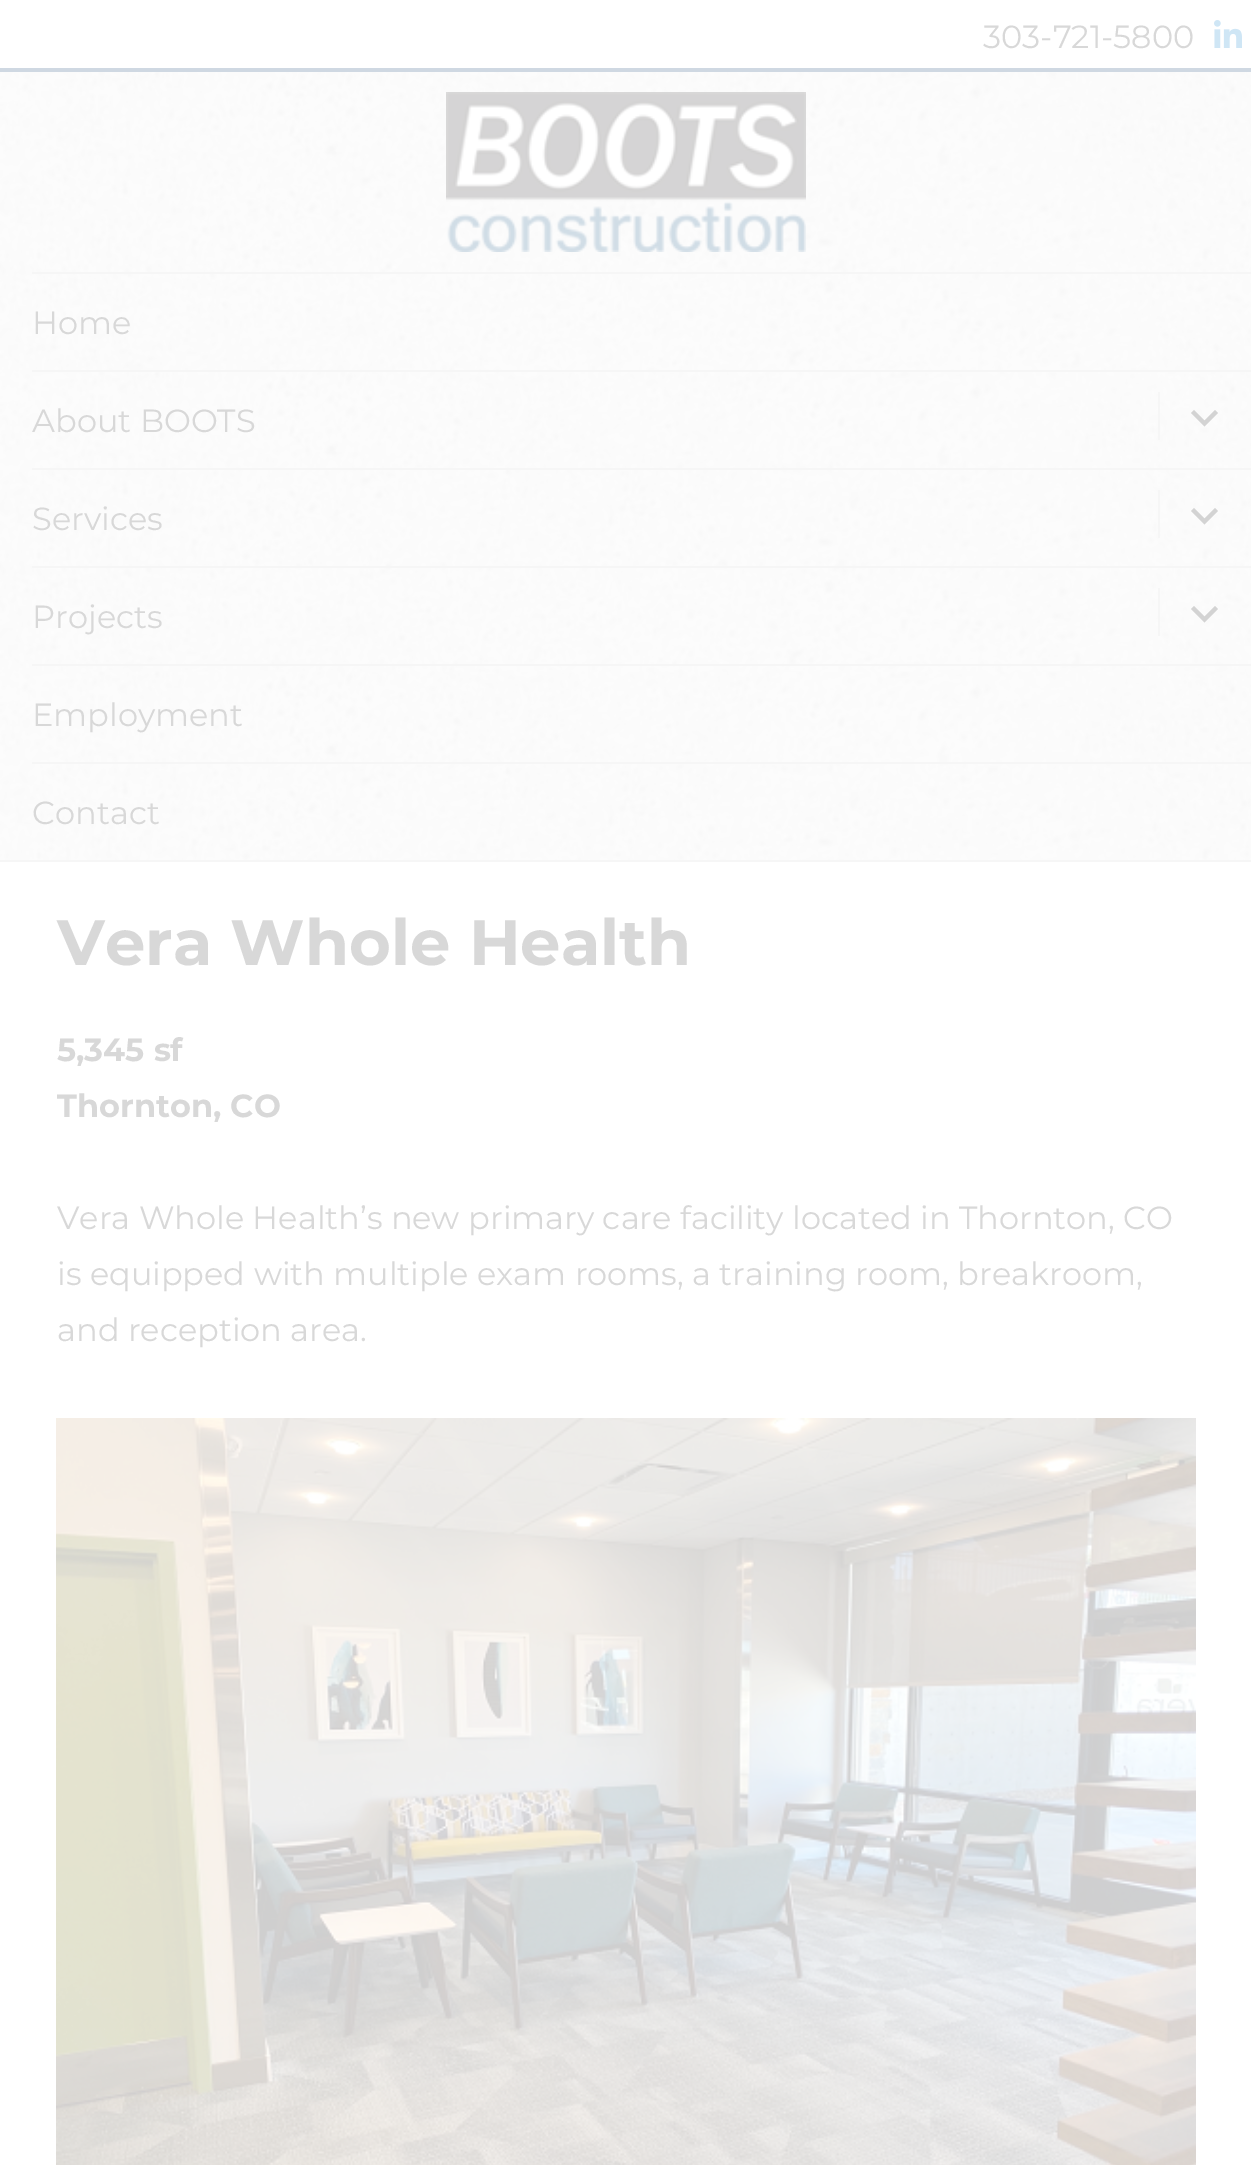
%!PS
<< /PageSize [1251 2165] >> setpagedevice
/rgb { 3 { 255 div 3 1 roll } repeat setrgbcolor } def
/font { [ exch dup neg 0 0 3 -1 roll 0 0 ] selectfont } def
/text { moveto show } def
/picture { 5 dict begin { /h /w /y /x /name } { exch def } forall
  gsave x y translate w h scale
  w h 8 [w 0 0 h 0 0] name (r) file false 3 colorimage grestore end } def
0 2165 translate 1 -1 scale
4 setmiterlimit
255 255 255 rgb
0 0 1251 2165 rectfill
207 216 226 rgb
0 68 1251 4 rectfill
(img_01.rgb) 1214 20 28 28 picture
(img_02.rgb) 0 72 1251 788 picture
(img_03.rgb) 446 92 360 160 picture
246 246 246 rgb
0 860 1251 2 rectfill
32 272 1219 2 rectfill
32 370 1219 2 rectfill
1158 392 2 48 rectfill
211 211 211 rgb
1215 410 moveto 3 3 rlineto -13.5 13.5 rlineto -13.5 -13.5 rlineto 3 -3 rlineto 10.5 10.5 rlineto closepath fill
246 246 246 rgb
32 468 1219 2 rectfill
1158 490 2 48 rectfill
211 211 211 rgb
1215 508 moveto 3 3 rlineto -13.5 13.5 rlineto -13.5 -13.5 rlineto 3 -3 rlineto 10.5 10.5 rlineto closepath fill
246 246 246 rgb
32 566 1219 2 rectfill
1158 588 2 48 rectfill
211 211 211 rgb
1215 606 moveto 3 3 rlineto -13.5 13.5 rlineto -13.5 -13.5 rlineto 3 -3 rlineto 10.5 10.5 rlineto closepath fill
246 246 246 rgb
32 664 1219 2 rectfill
32 762 1219 2 rectfill
(img_04.rgb) 56 1418 1140 747 picture
/Montserrat-Thin 32 font
216 216 216 rgb
(303-721-5800) 983 48 text
(Home) 32 334 text
(About BOOTS) 32 432 text
(Services) 32 530 text
(Projects) 32 628 text
(Employment) 32 726 text
(Contact) 32 824 text
/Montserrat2-Thin 64 font
(Vera Whole Health) 57 965 text
/Montserrat2-Thin 32 font
(5,345 sf) 57 1061 text
(Thornton, CO) 57 1117 text
/Montserrat-Thin 32 font
(Vera Whole Health’s new primary care facility located in Thornton, CO) 57 1229 text
(is equipped with multiple exam rooms, a training room, breakroom,) 57 1285 text
(and reception area.) 57 1341 text
showpage
